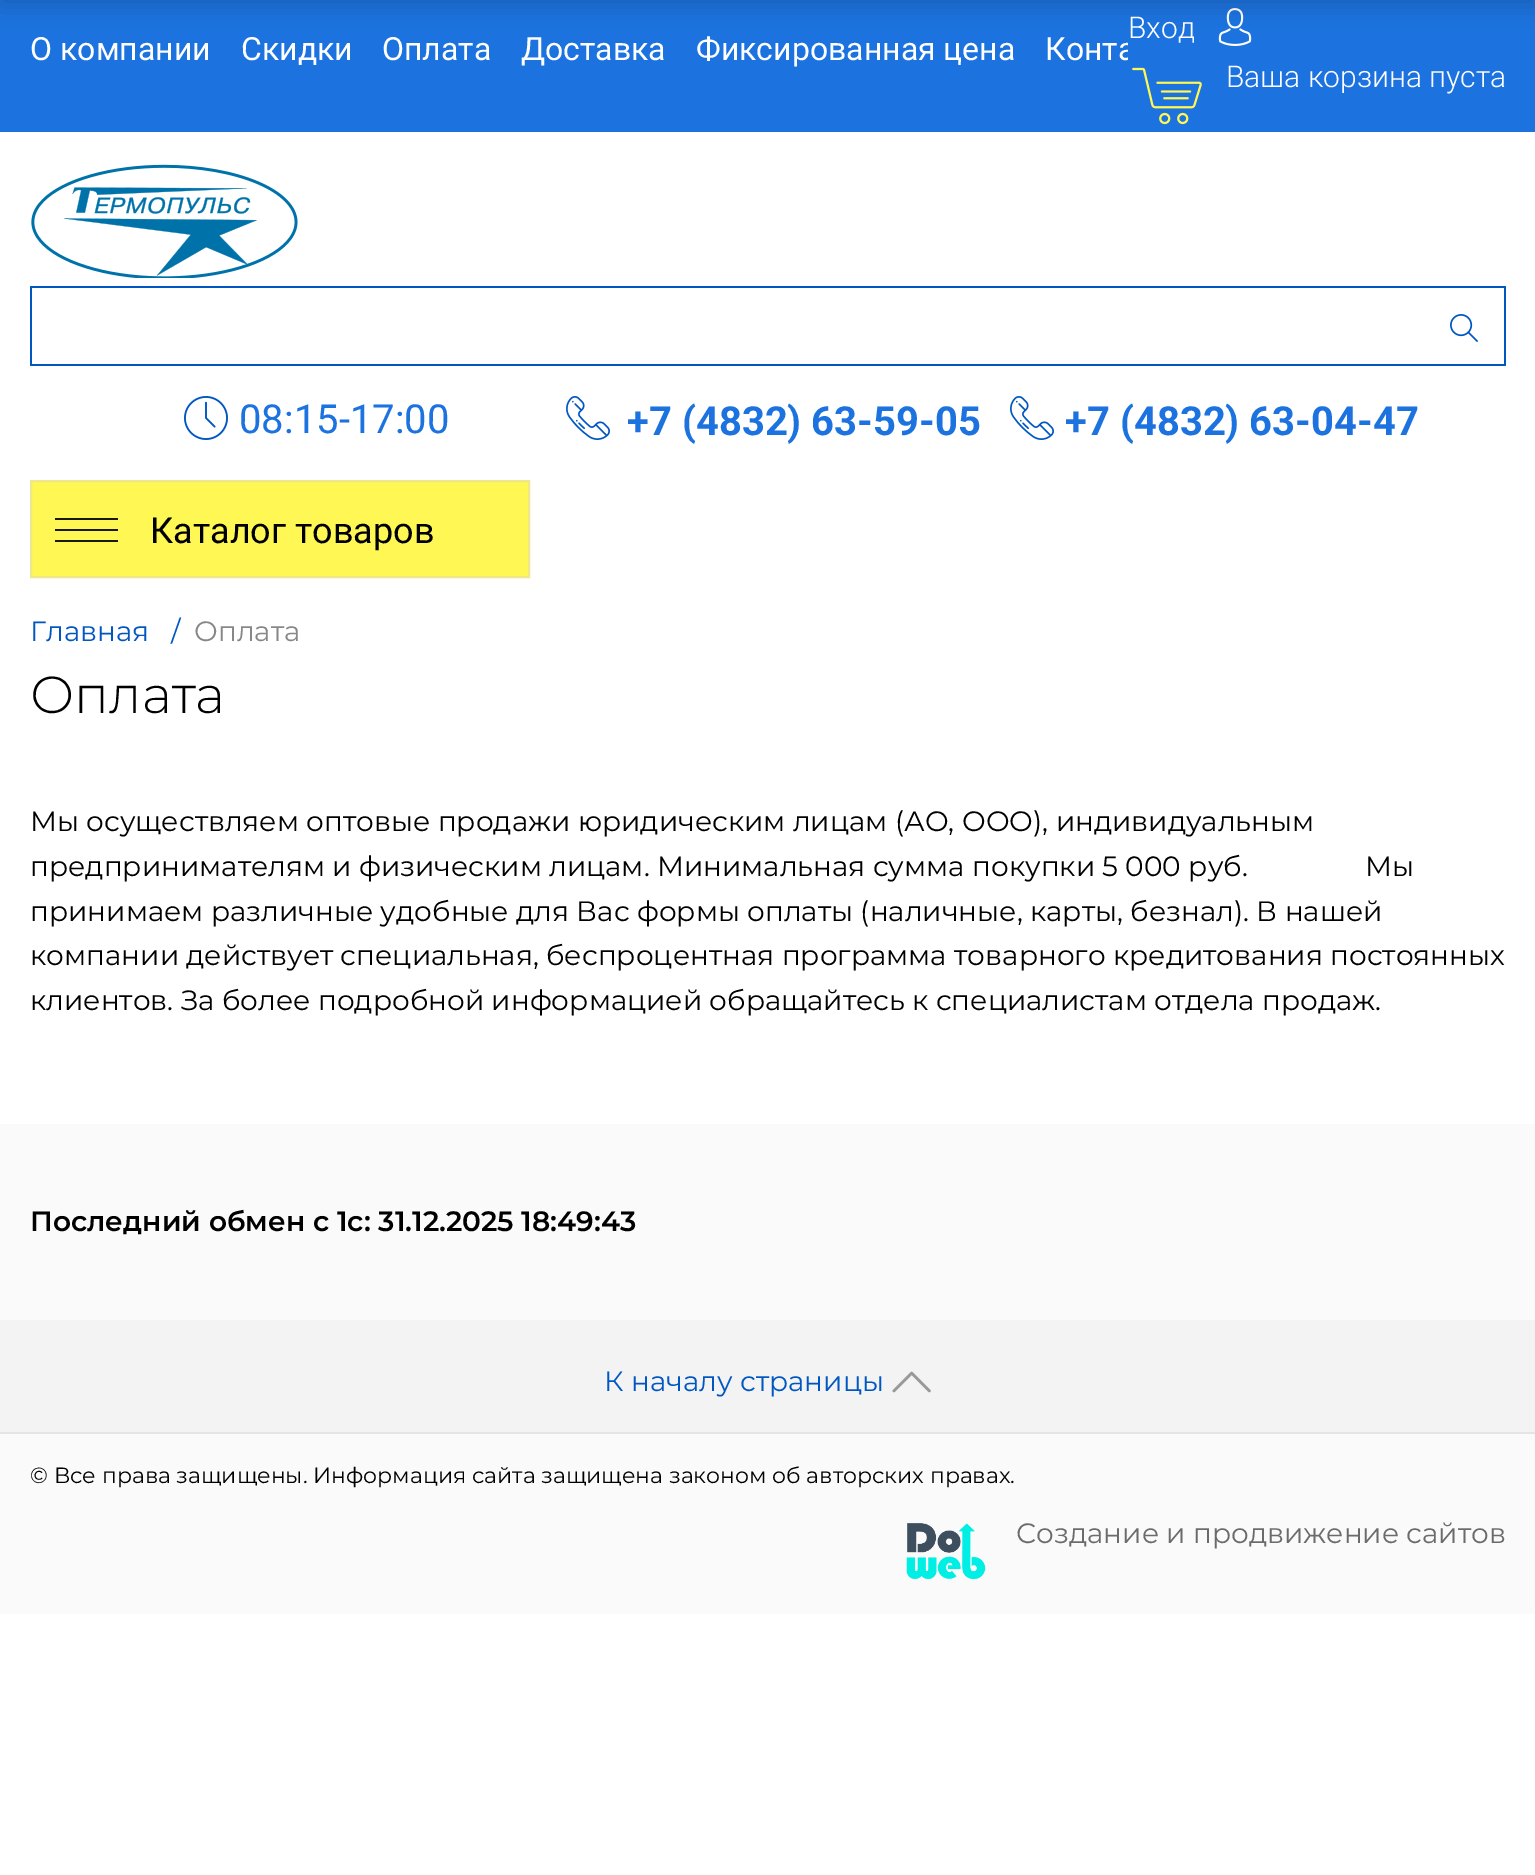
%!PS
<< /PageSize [1535 1875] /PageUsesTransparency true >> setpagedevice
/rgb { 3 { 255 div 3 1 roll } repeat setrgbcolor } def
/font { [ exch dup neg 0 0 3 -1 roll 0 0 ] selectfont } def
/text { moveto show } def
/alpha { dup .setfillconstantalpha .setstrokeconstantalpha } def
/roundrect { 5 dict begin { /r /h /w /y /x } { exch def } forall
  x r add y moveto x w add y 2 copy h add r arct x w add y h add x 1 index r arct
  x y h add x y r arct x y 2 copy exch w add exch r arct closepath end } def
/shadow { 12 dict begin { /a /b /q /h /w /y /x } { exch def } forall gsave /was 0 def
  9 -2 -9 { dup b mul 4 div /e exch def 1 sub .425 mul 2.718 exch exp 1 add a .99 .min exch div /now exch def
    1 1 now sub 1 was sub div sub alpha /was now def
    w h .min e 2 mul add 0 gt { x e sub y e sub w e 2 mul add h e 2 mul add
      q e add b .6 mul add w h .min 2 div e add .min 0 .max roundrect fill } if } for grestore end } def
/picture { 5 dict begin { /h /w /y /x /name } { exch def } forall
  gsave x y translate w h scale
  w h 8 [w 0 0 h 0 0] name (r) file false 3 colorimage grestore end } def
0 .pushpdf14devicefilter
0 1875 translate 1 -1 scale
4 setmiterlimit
255 255 255 rgb
0 0 1535 1875 rectfill
28 115 223 rgb
0 0 1535 132 rectfill
(img_01.rgb) 1218 8 34 38 picture
0 0 0 rgb
0 -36 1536 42 0 12 0.18 shadow
(img_02.rgb) 1132 67 70 58 picture
(img_03.rgb) 31 164 267 114 picture
0 87 194 rgb
30 286 1476 2 rectfill
30 364 1392 2 rectfill
30 286 2 80 rectfill
1504 286 2 80 rectfill
1422 364 84 2 rectfill
(img_04.rgb) 1450 314 28 28 picture
(img_05.rgb) 184 396 44 44 picture
(img_06.rgb) 566 396 44 44 picture
(img_06.rgb) 1010 396 44 44 picture
255 247 83 rgb
31 481 moveto 498 0 rlineto 0 96 rlineto -498 0 rlineto closepath gsave fill grestore
240 230 140 rgb
2 setlinewidth
stroke
26 25 8 rgb
55 518 63 2 rectfill
55 529 63 2 rectfill
55 540 63 2 rectfill
250 250 250 rgb
0 1124 1535 490 rectfill
243 243 243 rgb
0 1320 1535 112 rectfill
(img_07.rgb) 892 1371 39 22 picture
229 229 229 rgb
0 1432 1535 2 rectfill
(img_08.rgb) 906 1523 80 56 picture
/Roboto-Regular 32 font
255 255 255 rgb
(О компании) 30 60 text
(Скидки) 241 60 text
(Оплата) 382 60 text
(Доставка) 521 60 text
(Фиксированная цена) 696 60 text
gsave
30 0 1098 96 rectclip
(Конта) 1045 60 text
grestore
/Roboto-Light 30 font
(Вход) 1128 38 text
(Ваша корзина пуста) 1226 87 text
/Roboto-Regular 40 font
28 115 223 rgb
(08:15-17:00) 239 433 text
/Roboto-Bold 40 font
(+7 \(4832\) 63-59-05) 627 435 text
(+7 \(4832\) 63-04-47) 1065 435 text
/Roboto-Regular 36 font
0 0 0 rgb
(Каталог товаров) 150 543 text
/Montserrat-Regular 28 font
0 87 194 rgb
(Главная) 30 641 text
(/) 171 641 text
135 135 135 rgb
(Оплата) 194 641 text
/Montserrat-Light 52 font
0 0 0 rgb
(Оплата) 30 713 text
/Montserrat-Regular 28 font
(Мы осуществляем оптовые продажи юридическим лицам \(АО, ООО\), индивидуальным) 30 831 text
(предпринимателям и физическим лицам. Минимальная сумма покупки 5 000 руб.                Мы) 30 876 text
(принимаем различные удобные для Вас формы оплаты \(наличные, карты, безнал\). В нашей) 30 921 text
(компании действует специальная, беспроцентная программа товарного кредитования постоянных) 30 965 text
(клиентов. За более подробной информацией обращайтесь к специалистам отдела продаж.) 30 1010 text
/Montserrat-SemiBold 28 font
(Последний обмен c 1c: 31.12.2025 18:49:43) 30 1231 text
/Montserrat-Regular 28 font
0 87 194 rgb
(К началу страницы) 604 1391 text
/Montserrat-Regular 22 font
0 0 0 rgb
(© Все права защищены. Информация сайта защищена законом об авторских правах.) 30 1483 text
/Montserrat-Regular 28 font
107 107 107 rgb
(Создание и продвижение сайтов) 1016 1543 text
.poppdf14devicefilter showpage
